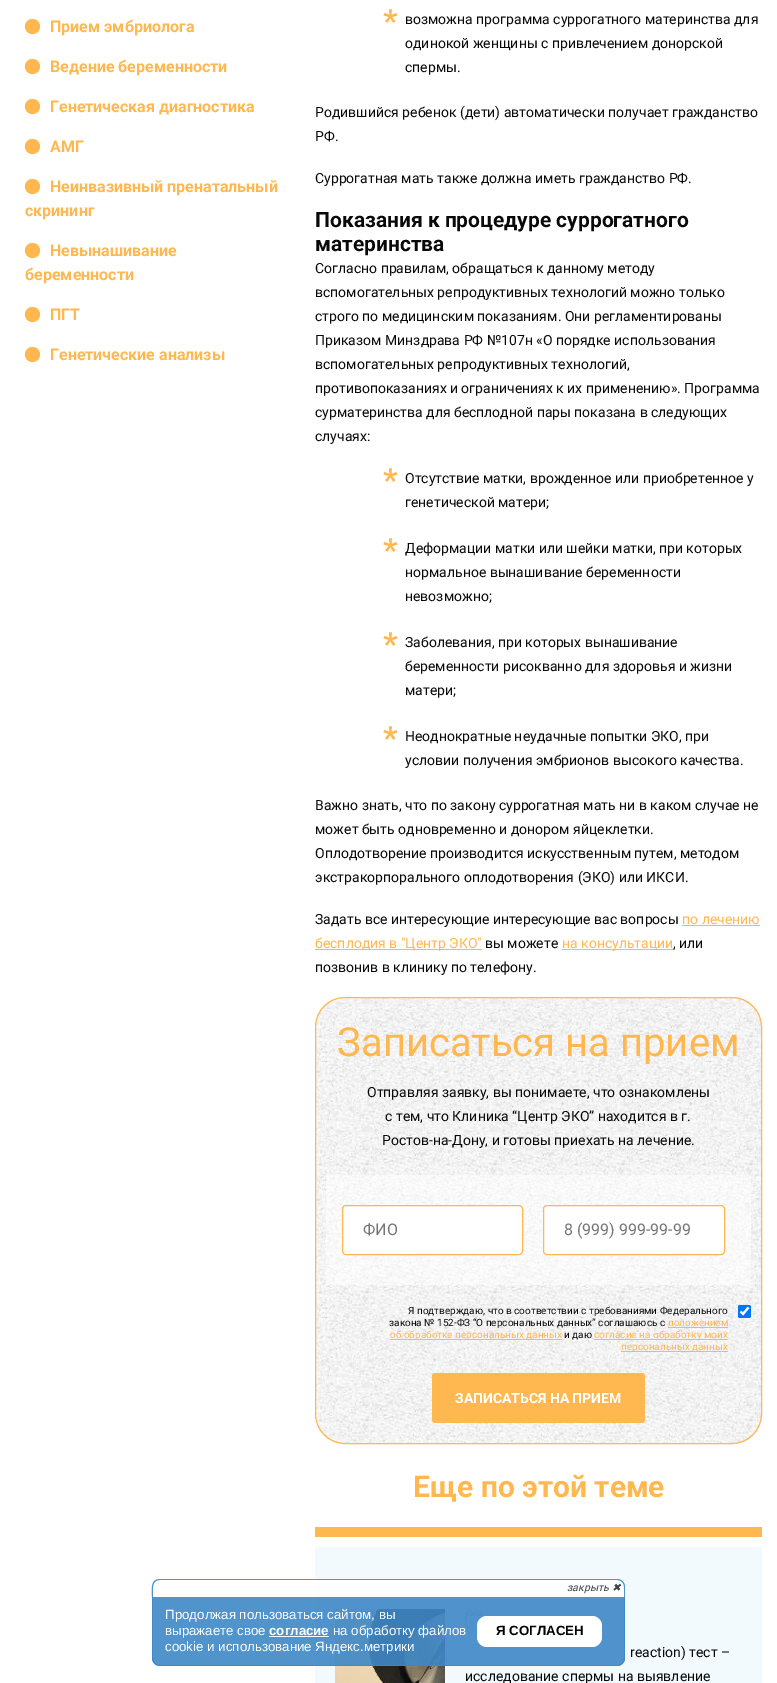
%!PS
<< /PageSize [777 1683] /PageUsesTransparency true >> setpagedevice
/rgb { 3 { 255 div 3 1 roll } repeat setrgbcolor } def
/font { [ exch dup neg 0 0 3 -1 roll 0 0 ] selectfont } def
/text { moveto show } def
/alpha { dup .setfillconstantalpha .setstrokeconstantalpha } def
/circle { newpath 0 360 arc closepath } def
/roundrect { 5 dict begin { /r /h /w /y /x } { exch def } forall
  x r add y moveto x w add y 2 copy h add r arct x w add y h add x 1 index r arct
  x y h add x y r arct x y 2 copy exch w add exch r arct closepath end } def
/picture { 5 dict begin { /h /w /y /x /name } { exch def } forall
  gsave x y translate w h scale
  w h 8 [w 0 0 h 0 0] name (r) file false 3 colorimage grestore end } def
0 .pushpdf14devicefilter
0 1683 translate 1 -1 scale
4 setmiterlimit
255 255 255 rgb
0 0 777 1683 rectfill
255 183 79 rgb
32.5 26.5 7.5 circle fill
32.5 66.5 7.5 circle fill
32.5 106.5 7.5 circle fill
32.5 146.5 7.5 circle fill
32.5 186.5 7.5 circle fill
32.5 250.5 7.5 circle fill
32.5 314.5 7.5 circle fill
32.5 354.5 7.5 circle fill
682 925 78 1 rectfill
315 949 167 1 rectfill
562 949 111 1 rectfill
(img_01.rgb) 315 997 447 447 picture
315.5 997.5 446 446 29.5 roundrect stroke
0.5 alpha
255 255 255 rgb
326 1175 425 110 rectfill
1 alpha
342.5 1205.5 180 49 3.5 roundrect gsave fill grestore
255 183 79 rgb
stroke
255 255 255 rgb
543.5 1205.5 181 49 3.5 roundrect gsave fill grestore
255 183 79 rgb
stroke
668 1327 60 1 rectfill
390 1339 172 1 rectfill
594 1339 134 1 rectfill
621 1351 107 1 rectfill
0 117 255 rgb
738 1305 13 13 2 roundrect fill
255 255 255 rgb
2.1 setlinewidth
740.5 1311.5 moveto 2.5 2.5 rlineto 5.5 -6.5 rlineto stroke
255 183 79 rgb
432 1373 213 50 3 roundrect fill
315 1527 447 10 rectfill
243 250 254 rgb
315 1547 447 136 rectfill
(img_02.rgb) 335 1609 110 74 picture
(img_03.rgb) 465 1609 17 19 picture
0.8 alpha
255 255 255 rgb
160 1579 moveto 457 0 rlineto 4.5 0 8 3.5 8 8 rcurveto 0 10 rlineto -473 0 rlineto 0 -10 rlineto 0 -4.5 3.5 -8 8 -8 rcurveto closepath fill
0.9 alpha
62 135 197 rgb
160 1579 moveto 457 0 rlineto 4 0 8 3 8 8 rcurveto 0 10 rlineto -473 0 rlineto 0 -7 -2 -18 8 -18 rcurveto closepath 160 1580 moveto 457 0 rlineto 4 0 7 3 7 7 rcurveto 0 10 rlineto -471 0 rlineto 0 -6 -2 -17 7 -17 rcurveto closepath eofill
152 1597 moveto 473 0 rlineto 0 61 rlineto 0 4.5 -3.5 8 -8 8 rcurveto -457 0 rlineto -4.5 0 -8 -3.5 -8 -8 rcurveto closepath fill
152 1597 moveto 473 0 rlineto 0 61 rlineto 0 4 -4 8 -8 8 rcurveto -457 0 rlineto -4 0 -8 -4 -8 -8 rcurveto closepath 153 1597 moveto 471 0 rlineto 0 61 rlineto 0 4 -3 7 -7 7 rcurveto -457 0 rlineto -4 0 -7 -3 -7 -7 rcurveto closepath eofill
1 alpha
255 255 255 rgb
269 1636 60 1 rectfill
477 1616 125 31 10 roundrect fill
/Roboto-Bold 16 font
255 183 79 rgb
(Прием эмбриолога) 50 32 text
(Ведение беременности) 50 72 text
(Генетическая диагностика) 50 112 text
(АМГ) 50 152 text
(Неинвазивный пренатальный) 50 192 text
(скрининг) 25 216 text
(Невынашивание) 50 256 text
(беременности) 25 280 text
(ПГТ) 50 320 text
(Генетические анализы) 50 360 text
/Roboto-Bold 32 font
(*) 383 32 text
/Roboto-Regular 14 font
9 9 9 rgb
(возможна программа суррогатного материнства для) 405 24 text
(одинокой женщины с привлечением донорской) 405 48 text
(спермы.) 405 72 text
(Родившийся ребенок \(дети\) автоматически получает гражданство) 315 117 text
(РФ.) 315 141 text
(Суррогатная мать также должна иметь гражданство РФ.) 315 183 text
/Roboto-Bold 21 font
(Показания к процедуре суррогатного) 315 227 text
(материнства) 315 251 text
/Roboto-Regular 14 font
(Согласно правилам, обращаться к данному методу) 315 273 text
(вспомогательных репродуктивных технологий можно только) 315 297 text
(строго по медицинским показаниям. Они регламентированы) 315 321 text
(Приказом Минздрава РФ №107н «О порядке использования) 315 345 text
(вспомогательных репродуктивных технологий,) 315 369 text
(противопоказаниях и ограничениях к их применению». Программа) 315 393 text
(сурматеринства для бесплодной пары показана в следующих) 315 417 text
(случаях:) 315 441 text
/Roboto-Bold 32 font
255 183 79 rgb
(*) 383 491 text
/Roboto-Regular 14 font
9 9 9 rgb
(Отсутствие матки, врожденное или приобретенное у) 405 483 text
(генетической матери;) 405 507 text
/Roboto-Bold 32 font
255 183 79 rgb
(*) 383 561 text
/Roboto-Regular 14 font
9 9 9 rgb
(Деформации матки или шейки матки, при которых) 405 553 text
(нормальное вынашивание беременности) 405 577 text
(невозможно;) 405 601 text
/Roboto-Bold 32 font
255 183 79 rgb
(*) 383 655 text
/Roboto-Regular 14 font
9 9 9 rgb
(Заболевания, при которых вынашивание) 405 647 text
(беременности рисокванно для здоровья и жизни) 405 671 text
(матери;) 405 695 text
/Roboto-Bold 32 font
255 183 79 rgb
(*) 383 749 text
/Roboto-Regular 14 font
9 9 9 rgb
(Неоднократные неудачные попытки ЭКО, при) 405 741 text
(условии получения эмбрионов высокого качества.) 405 765 text
(Важно знать, что по закону суррогатная мать ни в каком случае не) 315 810 text
(может быть одновременно и донором яйцеклетки.) 315 834 text
(Оплодотворение производится искусственным путем, методом) 315 858 text
(экстракорпорального оплодотворения \(ЭКО\) или ИКСИ.) 315 882 text
(Задать все интересующие интересующие вас вопросы) 315 924 text
255 183 79 rgb
(по лечению) 682 924 text
(бесплодия в "Центр ЭКО") 315 948 text
9 9 9 rgb
(вы можете) 485 948 text
255 183 79 rgb
(на консультации) 562 948 text
9 9 9 rgb
(, или) 673 948 text
(позвонив в клинику по телефону.) 315 972 text
/Roboto-Regular 40 font
255 183 79 rgb
(Записаться на прием) 337 1056 text
/Roboto-Regular 14 font
9 9 9 rgb
(Отправляя заявку, вы понимаете, что ознакомлены) 367 1097 text
(с тем, что Клиника “Центр ЭКО” находится в г.) 385 1121 text
(Ростов-на-Дону, и готовы приехать на лечение.) 382 1145 text
/Roboto-Regular 16 font
117 117 117 rgb
(ФИО) 363 1235 text
(8 \(999\) 999-99-99) 564 1235 text
/Roboto-Regular 10 font
9 9 9 rgb
(Я подтверждаю, что в соответствии с требованиями Федерального) 408 1314 text
(закона № 152-ФЗ “О персональных данных” соглашаюсь с) 389 1326 text
255 183 79 rgb
(положением) 668 1326 text
(об обработке персональных данных) 390 1338 text
9 9 9 rgb
(и даю) 564 1338 text
255 183 79 rgb
(согласие на обработку моих) 594 1338 text
(персональных данных) 621 1350 text
/Roboto-Bold 14 font
255 255 255 rgb
(ЗАПИСАТЬСЯ НА ПРИЕМ) 455 1403 text
/Roboto-Bold 30 font
255 183 79 rgb
(Еще по этой теме) 413 1497 text
/Roboto-Regular 14 font
9 9 9 rgb
(reaction\) тест –) 630 1657 text
(исследование спермы на выявление) 465 1681 text
/Roboto-Italic 10.5 font
64 64 64 rgb
(закрыть) 567 1591 text
/DejaVuSans-Italic 10.5 font
(✖) 612 1591 text
/LiberationSans-Regular 13.3 font
255 255 255 rgb
(Продолжая пользоваться сайтом, вы) 165 1619 text
(выражаете свое) 165 1635 text
/LiberationSans-Bold 13.3 font
(согласие) 269 1635 text
/LiberationSans-Regular 13.3 font
(на обработку файлов) 333 1635 text
(cookie и использование Яндекс.метрики) 165 1651 text
/LiberationSans-Bold 13.3 font
0 0 0 rgb
(Я СОГЛАСЕН) 496 1635 text
.poppdf14devicefilter showpage
